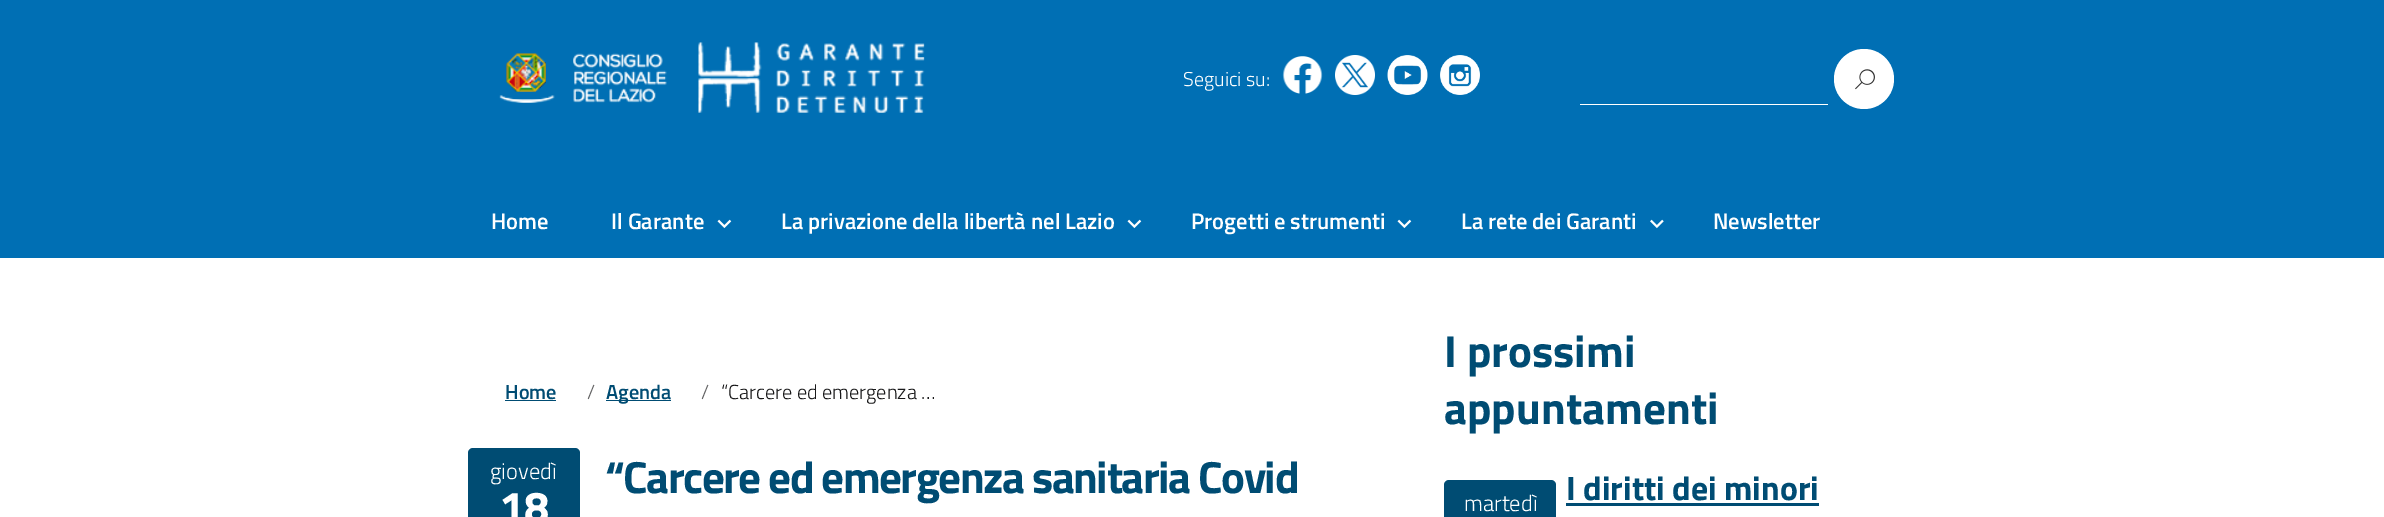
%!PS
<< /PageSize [2384 517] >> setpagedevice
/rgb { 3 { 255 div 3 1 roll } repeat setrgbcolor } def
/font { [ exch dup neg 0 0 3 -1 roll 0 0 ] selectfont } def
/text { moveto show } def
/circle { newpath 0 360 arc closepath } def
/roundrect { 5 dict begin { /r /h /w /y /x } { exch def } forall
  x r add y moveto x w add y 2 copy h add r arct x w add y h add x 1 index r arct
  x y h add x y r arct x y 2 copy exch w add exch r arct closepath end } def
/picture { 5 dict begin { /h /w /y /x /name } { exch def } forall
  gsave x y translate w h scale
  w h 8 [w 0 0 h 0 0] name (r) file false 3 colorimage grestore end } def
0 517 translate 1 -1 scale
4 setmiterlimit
255 255 255 rgb
0 0 2384 517 rectfill
0 111 180 rgb
0 0 2384 258 rectfill
(img_01.rgb) 499 53 168 50 picture
(img_02.rgb) 698 42 227 71 picture
(img_03.rgb) 1282 56 41 38 picture
(img_04.rgb) 1335 55 40 40 picture
(img_05.rgb) 1387 55 41 40 picture
(img_06.rgb) 1440 55 40 40 picture
255 255 255 rgb
1580 104 248 1 rectfill
1864 79 30 circle fill
(img_07.rgb) 1855 69 20 21 picture
(img_08.rgb) 717 219 15 10 picture
(img_08.rgb) 1127 219 15 10 picture
(img_08.rgb) 1397 219 15 10 picture
(img_09.rgb) 1650 219 14 10 picture
0 76 115 rgb
505 400 51 1 rectfill
606 400 65 1 rectfill
468 448 112 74 5 roundrect fill
1566 503 253 3 rectfill
1444 480 112 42 5 roundrect fill
/TitilliumWeb-Light 20 font
255 255 255 rgb
(Seguici su:) 1183 86 text
/TitilliumWeb-SemiBold 22.5 font
(Home) 491 229 text
(Il Garante) 611 229 text
(La privazione della libertà nel Lazio) 781 229 text
(Progetti e strumenti) 1191 229 text
(La rete dei Garanti) 1461 229 text
(Newsletter) 1713 229 text
/TitilliumWeb-SemiBold 20.25 font
0 76 115 rgb
(Home) 505 399 text
/TitilliumWeb-Light 20.25 font
101 101 102 rgb
(/) 587 399 text
/TitilliumWeb-SemiBold 20.25 font
0 76 115 rgb
(Agenda) 606 399 text
/TitilliumWeb-Light 20.25 font
101 101 102 rgb
(/) 701 399 text
25 25 26 rgb
(“Carcere ed emergenza …) 721 399 text
/TitilliumWeb-Light 22.5 font
255 255 255 rgb
(giovedì) 490 479 text
/TitilliumWeb-Bold 45 font
(18) 499 523 text
0 76 115 rgb
605 493 moveto -1.5 0 (“Carcere ed emergenza sanitaria Covid) ashow
(I prossimi) 1444 367 text
(appuntamenti) 1444 424 text
/TitilliumWeb-Bold 33.75 font
(I diritti dei minori) 1566 500 text
/TitilliumWeb-Light 22.5 font
255 255 255 rgb
(martedì) 1464 511 text
showpage
